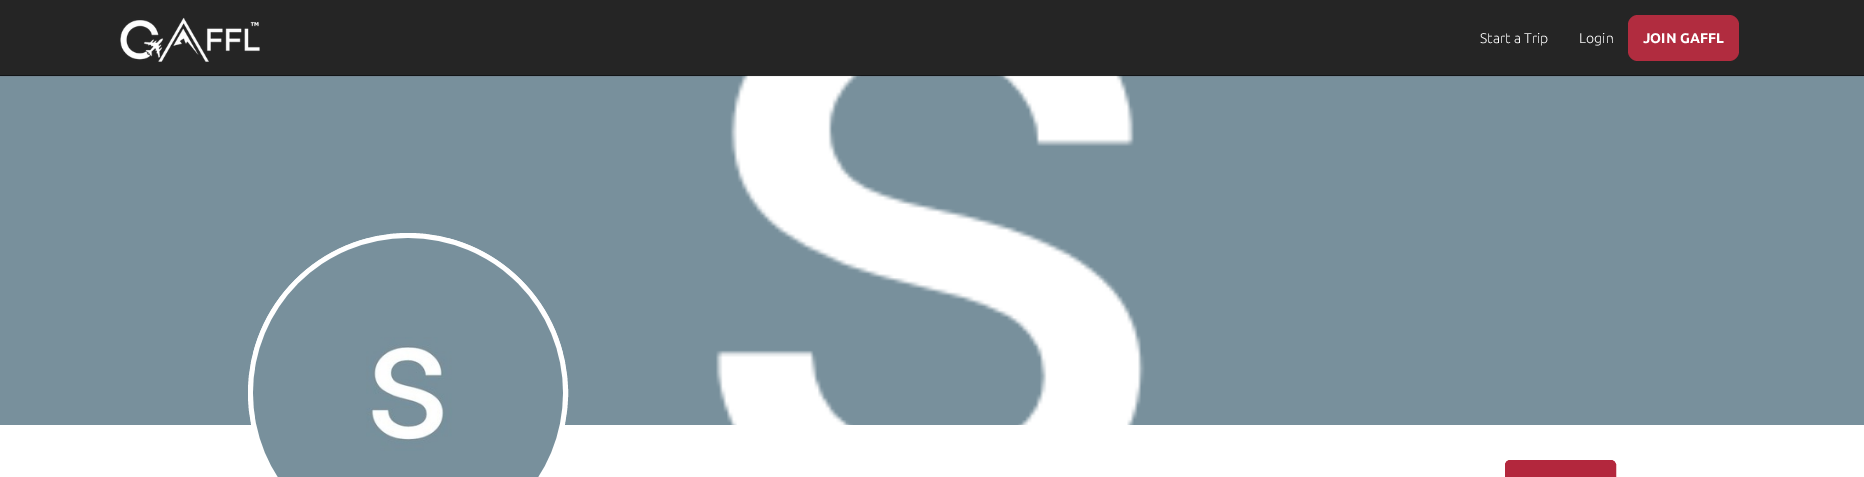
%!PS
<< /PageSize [1864 477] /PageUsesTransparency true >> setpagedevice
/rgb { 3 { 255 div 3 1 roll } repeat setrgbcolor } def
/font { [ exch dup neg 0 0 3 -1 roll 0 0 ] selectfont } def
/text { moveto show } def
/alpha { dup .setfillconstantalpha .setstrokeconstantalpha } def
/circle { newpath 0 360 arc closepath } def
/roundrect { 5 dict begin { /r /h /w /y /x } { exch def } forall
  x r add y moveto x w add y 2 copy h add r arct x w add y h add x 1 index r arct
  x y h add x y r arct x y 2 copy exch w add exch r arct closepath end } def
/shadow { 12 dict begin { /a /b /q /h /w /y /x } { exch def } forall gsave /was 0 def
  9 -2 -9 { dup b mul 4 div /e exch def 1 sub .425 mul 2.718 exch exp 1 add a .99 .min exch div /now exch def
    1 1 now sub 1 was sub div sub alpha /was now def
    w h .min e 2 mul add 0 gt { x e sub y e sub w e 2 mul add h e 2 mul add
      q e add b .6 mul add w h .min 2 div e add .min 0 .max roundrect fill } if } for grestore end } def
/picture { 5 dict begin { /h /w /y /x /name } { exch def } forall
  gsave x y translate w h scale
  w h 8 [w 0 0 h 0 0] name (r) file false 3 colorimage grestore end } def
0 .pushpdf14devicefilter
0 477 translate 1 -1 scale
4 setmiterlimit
250 250 250 rgb
0 0 1864 477 rectfill
(img_02.rgb) 0 75 1864 350 picture
gsave
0 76 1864 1 rectclip
0 0 0 rgb
0 1 1864 76 0 0.5 0.05 shadow
grestore
0.85 alpha
0 0 0 rgb
0 0 1864 76 rectfill
1 alpha
(img_01.rgb) 120 17 140 45 picture
177 44 63 rgb
1628 15 111 46 10 roundrect fill
255 255 255 rgb
0 425 1864 52 rectfill
408 393 159.5 circle gsave fill grestore
stroke
(img_03.rgb) 253 238 310 239 picture
179 39 61 rgb
1505.5 460.5 110 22 4.5 roundrect gsave fill grestore
stroke
/Ubuntu-Light 14 font
255 255 255 rgb
(Start a Trip) 1480 43 text
(Login) 1579 43 text
/Ubuntu-Bold 14 font
(JOIN GAFFL) 1643 43 text
.poppdf14devicefilter showpage
